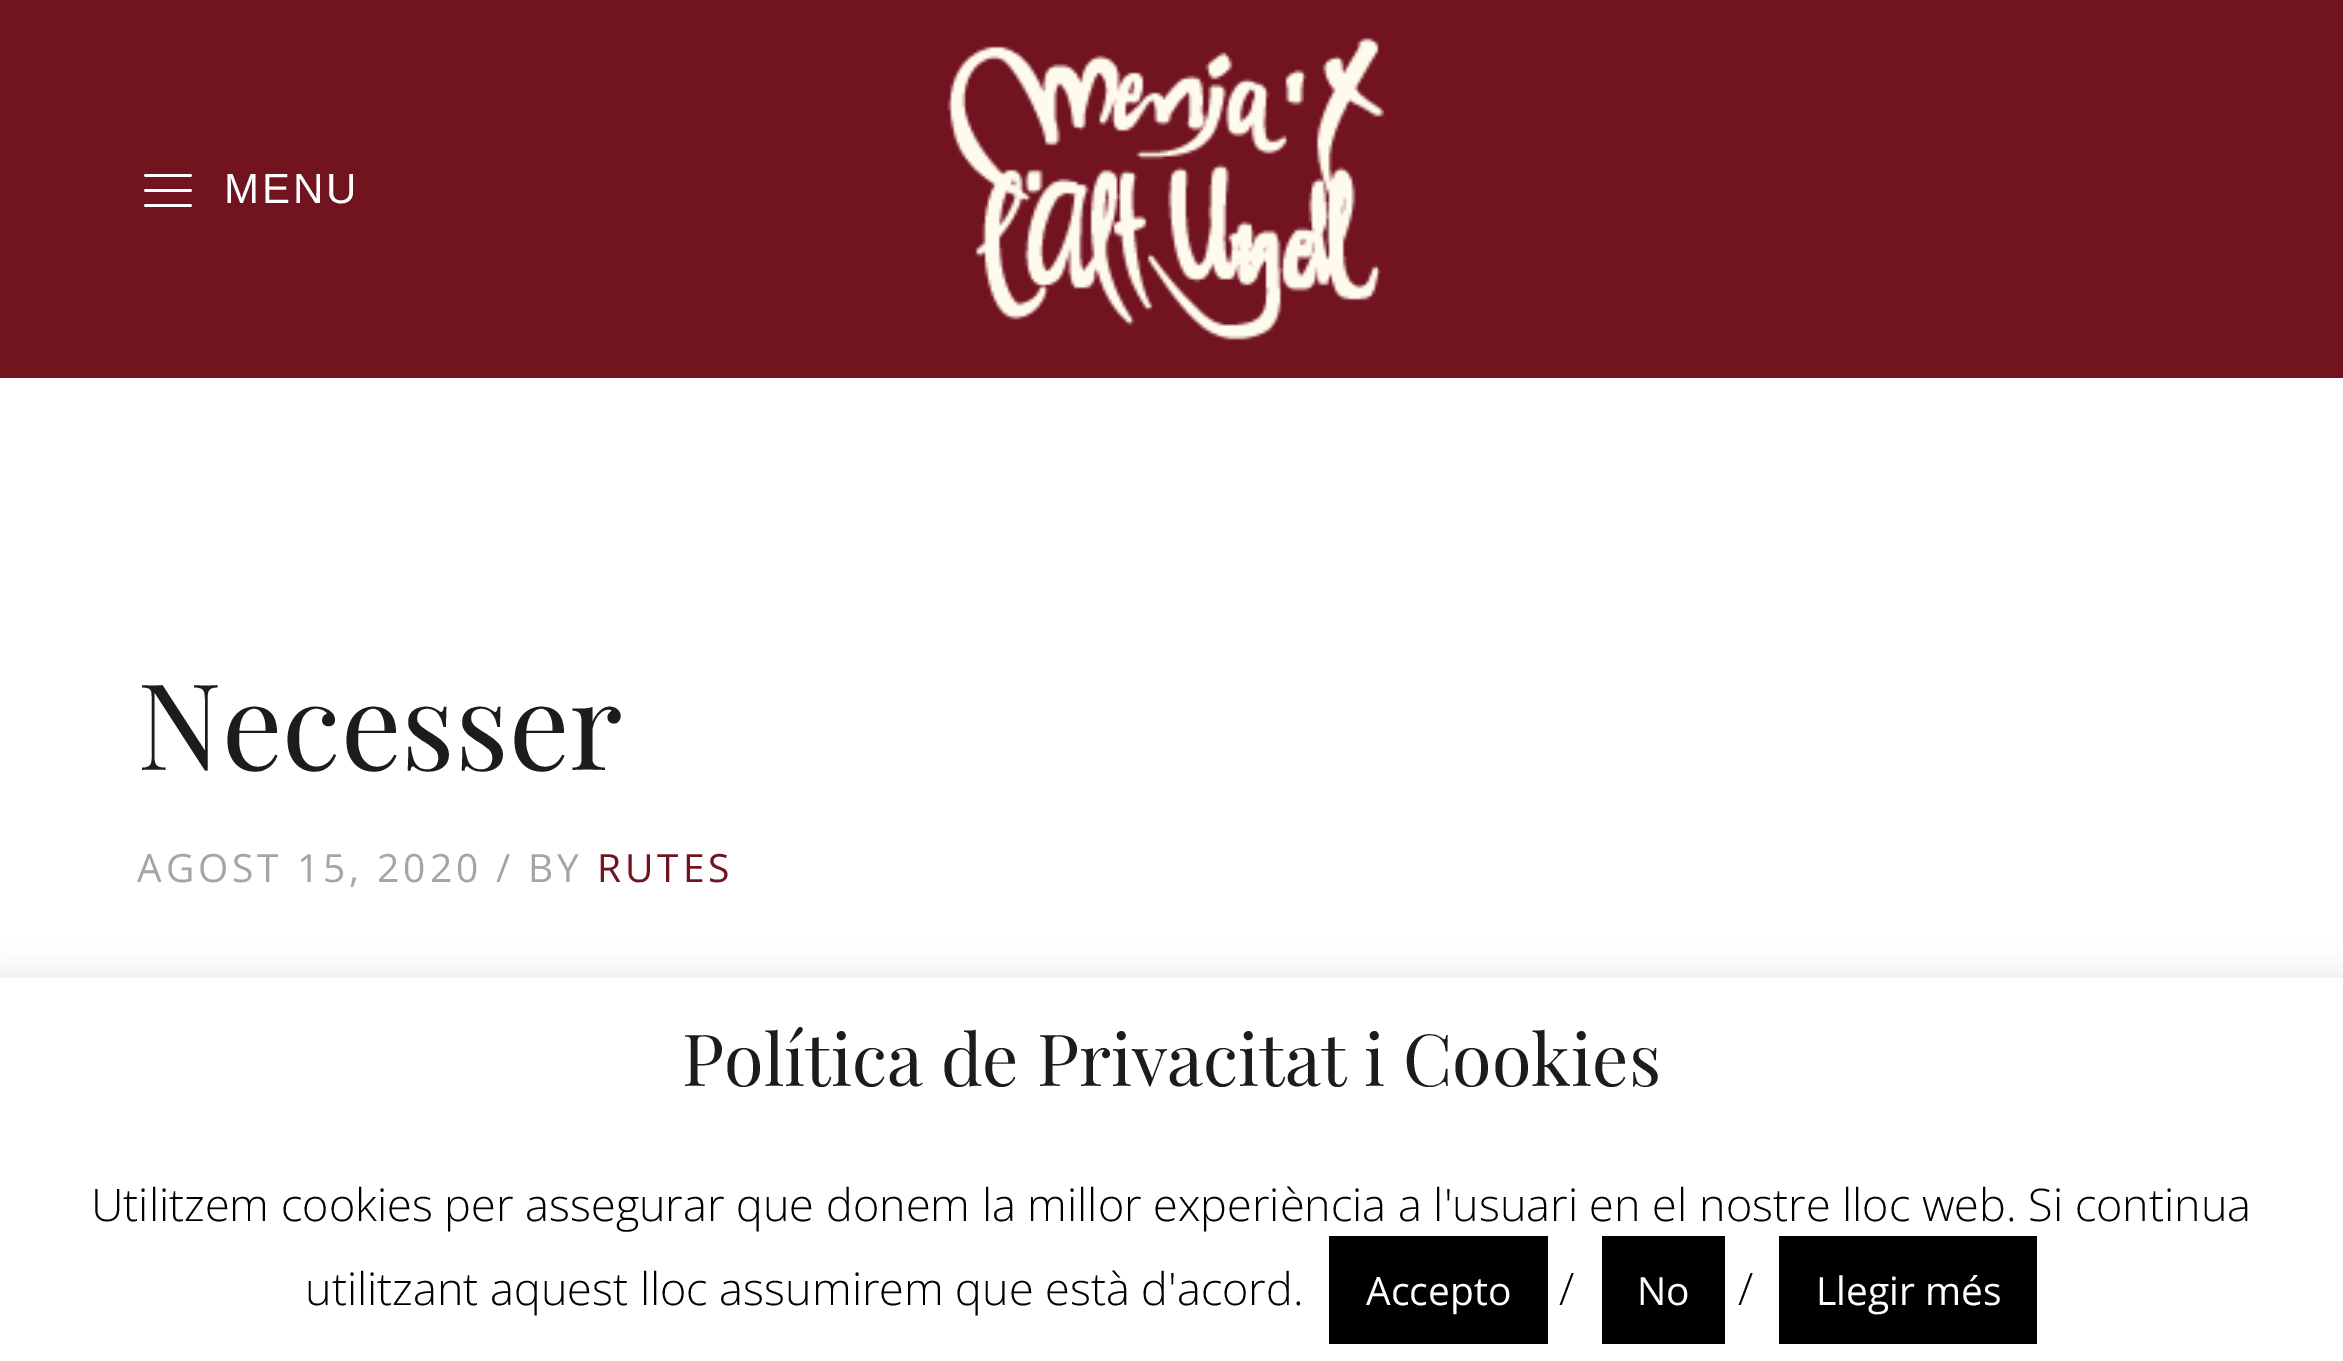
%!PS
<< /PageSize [2343 1361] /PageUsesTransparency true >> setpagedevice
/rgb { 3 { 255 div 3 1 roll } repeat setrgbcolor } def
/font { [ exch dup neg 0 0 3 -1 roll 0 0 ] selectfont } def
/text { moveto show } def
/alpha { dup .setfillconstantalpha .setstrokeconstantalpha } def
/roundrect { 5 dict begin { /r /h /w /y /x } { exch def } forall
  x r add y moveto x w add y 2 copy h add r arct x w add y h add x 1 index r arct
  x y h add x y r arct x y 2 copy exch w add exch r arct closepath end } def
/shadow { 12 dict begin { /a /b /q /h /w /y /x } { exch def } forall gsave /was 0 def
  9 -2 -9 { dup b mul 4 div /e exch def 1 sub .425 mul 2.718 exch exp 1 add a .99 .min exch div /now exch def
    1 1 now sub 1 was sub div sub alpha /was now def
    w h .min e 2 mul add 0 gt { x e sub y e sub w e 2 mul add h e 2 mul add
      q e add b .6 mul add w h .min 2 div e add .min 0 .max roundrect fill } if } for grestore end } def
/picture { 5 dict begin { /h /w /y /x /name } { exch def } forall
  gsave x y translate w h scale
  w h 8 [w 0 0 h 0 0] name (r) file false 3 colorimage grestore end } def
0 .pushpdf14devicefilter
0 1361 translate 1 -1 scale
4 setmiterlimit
255 255 255 rgb
0 0 2343 1361 rectfill
113 20 31 rgb
0 0 2343 378 rectfill
(img_01.rgb) 144 174 48 33 picture
(img_02.rgb) 947 37 438 304 picture
172 171 171 rgb
0 975 2343 384 0 15 0.3 shadow
255 255 255 rgb
0 978 2343 383 rectfill
0 0 0 rgb
1329 1236 219 108 rectfill
1602 1236 123 108 rectfill
1779 1236 258 108 rectfill
/LiberationSans-Regular 42 font
255 255 255 rgb
224 203 moveto 3 0 (MENU) ashow
/PlayfairDisplay-Regular 120 font
28 28 28 rgb
(Necesser) 137 770 text
/OpenSans-Regular 39 font
165 165 165 rgb
137 882 moveto 3.9 0 (AGOST 15, 2020 / BY) ashow
113 20 31 rgb
597 882 moveto 3.9 0 (RUTES) ashow
/PlayfairDisplay-Regular 72 font
28 28 28 rgb
(Política de Privacitat i Cookies) 682 1086 text
/OpenSans-Light 45 font
0 0 0 rgb
(Utilitzem cookies per assegurar que donem la millor experiència a l'usuari en el nostre lloc web. Si continua) 91 1221 text
(utilitzant aquest lloc assumirem que està d'acord.) 305 1305 text
/OpenSans-Regular 39 font
255 255 255 rgb
(Accepto) 1366 1305 text
/OpenSans-Light 45 font
0 0 0 rgb
(/) 1559 1305 text
/OpenSans-Regular 39 font
255 255 255 rgb
(No) 1637 1305 text
/OpenSans-Light 45 font
0 0 0 rgb
(/) 1738 1305 text
/OpenSans-Regular 39 font
255 255 255 rgb
(Llegir més) 1816 1305 text
.poppdf14devicefilter showpage
